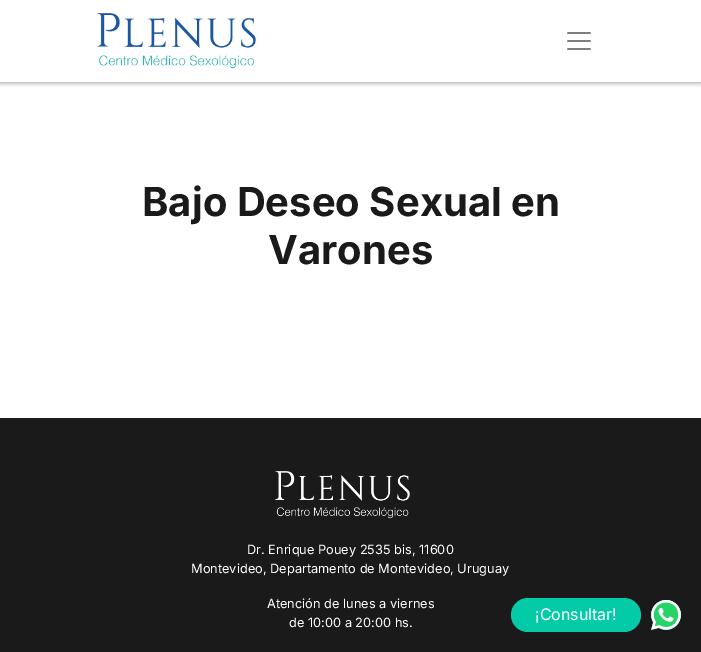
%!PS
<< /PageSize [701 652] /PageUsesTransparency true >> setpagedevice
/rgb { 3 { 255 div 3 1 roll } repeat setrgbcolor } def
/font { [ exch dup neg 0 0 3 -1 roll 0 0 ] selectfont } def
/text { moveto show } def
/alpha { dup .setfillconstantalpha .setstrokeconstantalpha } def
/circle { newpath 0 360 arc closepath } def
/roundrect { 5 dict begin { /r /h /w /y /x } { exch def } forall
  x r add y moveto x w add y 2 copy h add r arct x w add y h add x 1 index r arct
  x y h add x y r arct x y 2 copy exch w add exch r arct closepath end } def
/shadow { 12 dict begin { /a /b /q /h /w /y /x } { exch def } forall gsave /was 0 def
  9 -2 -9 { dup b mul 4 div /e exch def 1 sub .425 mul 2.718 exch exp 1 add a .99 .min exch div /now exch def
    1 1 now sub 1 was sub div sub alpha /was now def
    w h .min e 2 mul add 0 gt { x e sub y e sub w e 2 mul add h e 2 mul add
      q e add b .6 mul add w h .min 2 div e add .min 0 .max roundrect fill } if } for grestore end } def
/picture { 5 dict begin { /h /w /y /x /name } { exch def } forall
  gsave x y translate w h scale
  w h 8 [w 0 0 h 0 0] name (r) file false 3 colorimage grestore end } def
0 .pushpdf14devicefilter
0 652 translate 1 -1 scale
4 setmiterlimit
255 255 255 rgb
0 0 701 652 rectfill
gsave
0 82 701 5 rectclip
0 0 0 rgb
0 0 701 82 0 3 0.5 shadow
grestore
(img_01.rgb) 97 13 159 56 picture
(img_02.rgb) 567 32 24 18 picture
26 26 26 rgb
0 418 701 234 rectfill
(img_03.rgb) 275 471 135 48 picture
4 203 167 rgb
511 598 130 34 17 roundrect fill
666 615 15 circle fill
(img_04.rgb) 651 600 30 30 picture
/Inter-Bold 40 font
26 26 26 rgb
(Bajo Deseo Sexual en) 142 216 text
(Varones) 268 264 text
/Inter-Regular 12.8 font
255 255 255 rgb
(Dr. Enrique Pouey 2535 bis, 11600) 247 554 text
(Montevideo, Departamento de Montevideo, Uruguay) 191 573 text
(Atención de lunes a viernes) 267 608 text
(de 10:00 a 20:00 hs.) 289 627 text
/Inter-Regular 16 font
(¡Consultar!) 535 620 text
.poppdf14devicefilter showpage
